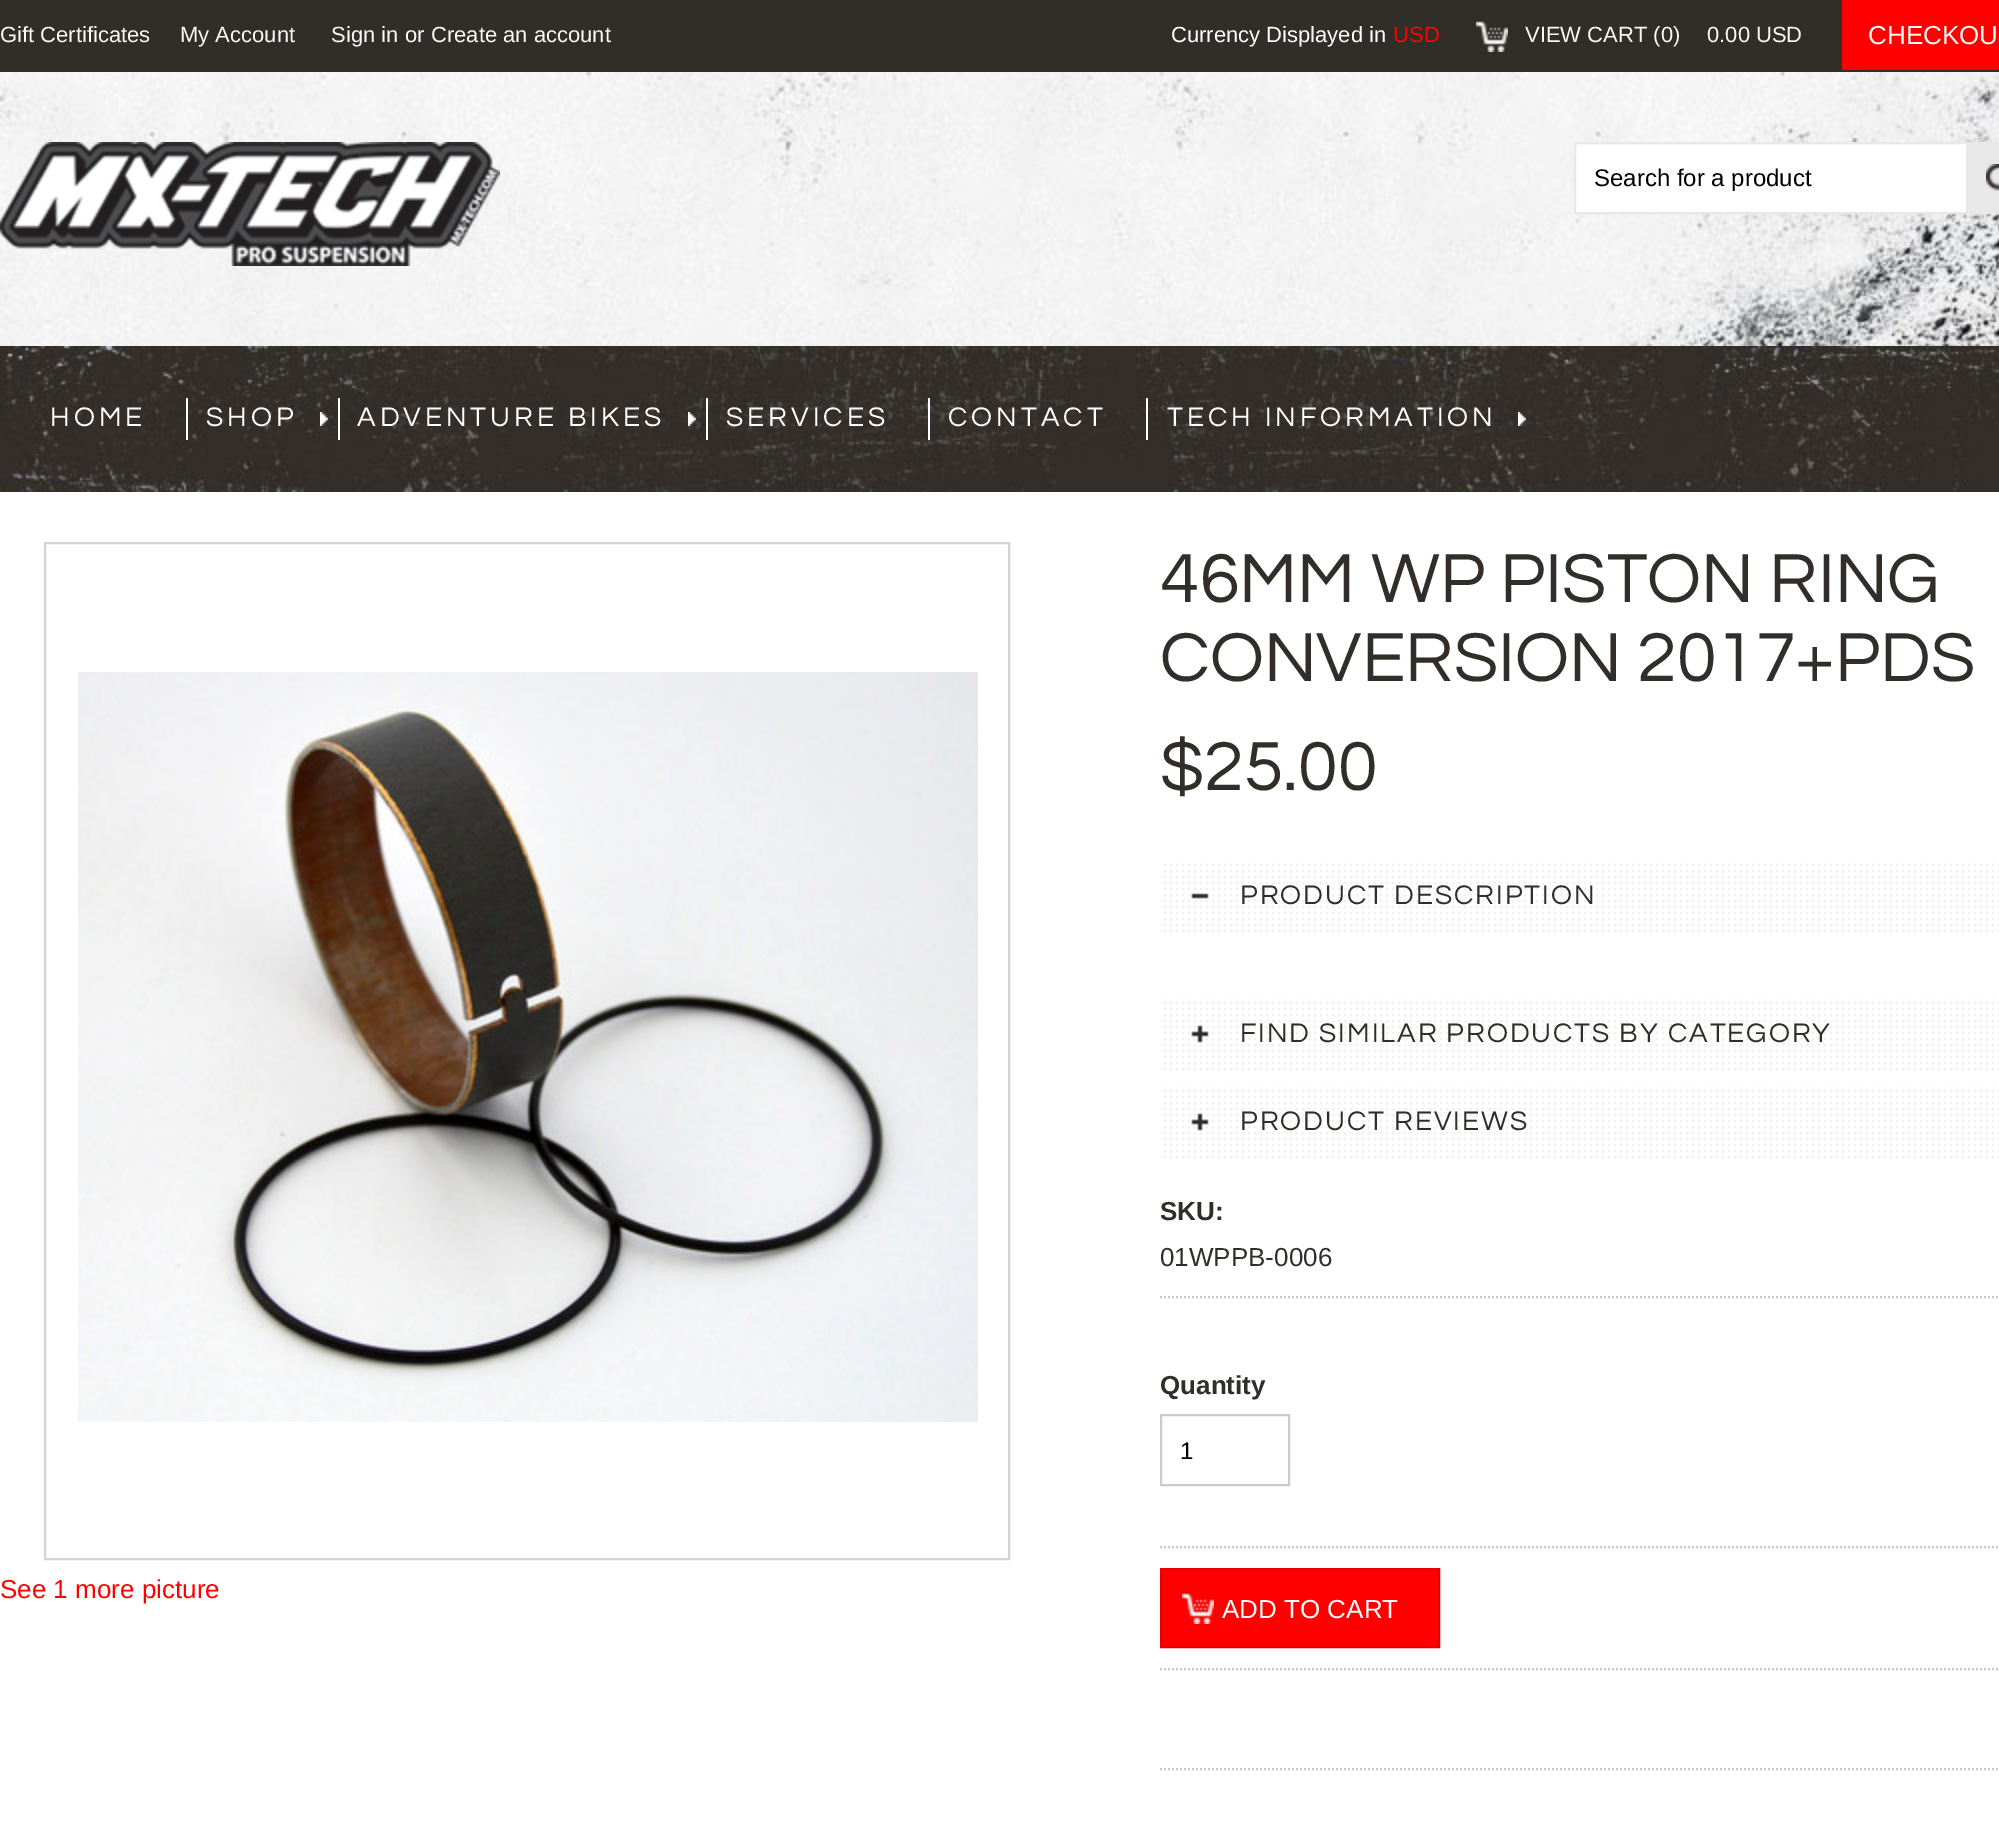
%!PS
<< /PageSize [1999 1831] >> setpagedevice
/rgb { 3 { 255 div 3 1 roll } repeat setrgbcolor } def
/font { [ exch dup neg 0 0 3 -1 roll 0 0 ] selectfont } def
/text { moveto show } def
/picture { 5 dict begin { /h /w /y /x /name } { exch def } forall
  gsave x y translate w h scale
  w h 8 [w 0 0 h 0 0] name (r) file false 3 colorimage grestore end } def
0 1831 translate 1 -1 scale
4 setmiterlimit
255 255 255 rgb
0 0 1999 1831 rectfill
(img_01.rgb) 0 72 1999 274 picture
49 46 41 rgb
0 0 1999 72 rectfill
(img_02.rgb) 1476 20 32 32 picture
255 0 0 rgb
1842 0 157 70 rectfill
(img_03.rgb) 0 142 500 124 picture
255 255 255 rgb
1576 144 390 68 rectfill
231 232 231 rgb
2 setlinewidth
1575 143 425 70 rectstroke
1966 144 33 68 rectfill
(img_04.rgb) 1986 164 13 27 picture
(img_05.rgb) 0 346 1999 146 picture
255 255 255 rgb
186 398 2 42 rectfill
(img_06.rgb) 320 412 8 14 picture
338 398 2 42 rectfill
(img_07.rgb) 688 412 8 14 picture
706 398 2 42 rectfill
928 398 2 42 rectfill
1146 398 2 42 rectfill
(img_08.rgb) 1518 412 8 14 picture
212 212 212 rgb
45 543 964 1016 rectstroke
(img_09.rgb) 78 672 900 750 picture
(img_10.rgb) 1160 860 839 73 picture
(img_11.rgb) 1191 893 18 6 picture
(img_10.rgb) 1160 998 839 73 picture
(img_12.rgb) 1191 1025 18 18 picture
(img_10.rgb) 1160 1086 839 73 picture
(img_12.rgb) 1191 1113 18 18 picture
200 200 200 rgb
[2 2] 0 setdash
1160 1297 moveto 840 0 rlineto stroke
1160 1669 moveto 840 0 rlineto stroke
1160 1547 moveto 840 0 rlineto stroke
204 203 202 rgb
[] 0 setdash
1161 1415 128 70 rectstroke
255 0 0 rgb
1162 1570 276 76 rectfill
(img_13.rgb) 1182 1592 32 32 picture
230 0 0 rgb
1161 1569 278 78 rectstroke
200 200 200 rgb
[2 2] 0 setdash
1160 1769 moveto 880 0 rlineto stroke
/LiberationSans-Regular 22 font
250 249 248 rgb
(Gift Certificates) 0 42 text
(My Account) 180 42 text
(Sign in) 331 42 text
255 255 255 rgb
(or) 405 42 text
250 249 248 rgb
(Create an account) 431 42 text
255 255 255 rgb
(Currency Displayed in) 1171 42 text
255 0 0 rgb
(USD) 1393 42 text
250 249 248 rgb
(VIEW CART \(0\)) 1525 42 text
(0.00 USD) 1707 42 text
/LiberationSans-Regular 26 font
(CHECKOU) 1868 44 text
/LiberationSans-Regular 24 font
0 0 0 rgb
(Search for a product) 1594 186 text
/Questrial-Regular 28 font
255 255 255 rgb
50 426 moveto 4 0 (HOME) ashow
206 426 moveto 4 0 (SHOP) ashow
357 426 moveto 4 0 (ADVENTURE BIKES) ashow
726 426 moveto 4 0 (SERVICES) ashow
948 426 moveto 4 0 (CONTACT) ashow
1167 426 moveto 4 0 (TECH INFORMATION) ashow
/LiberationSans-Regular 26 font
255 0 0 rgb
(See 1 more picture) 0 1598 text
/Questrial-Regular 72 font
49 46 41 rgb
(46MM WP PISTON RING) 1160 602 text
(CONVERSION 2017+PDS) 1160 681 text
($25.00) 1160 790 text
/Questrial-Regular 28 font
1240 904 moveto 2 0 (PRODUCT DESCRIPTION) ashow
1240 1042 moveto 2 0 (FIND SIMILAR PRODUCTS BY CATEGORY) ashow
1240 1130 moveto 2 0 (PRODUCT REVIEWS) ashow
/LiberationSans-Bold 26 font
(SKU:) 1160 1220 text
/LiberationSans-Regular 26 font
(01WPPB-0006) 1160 1266 text
/LiberationSans-Bold 26 font
(Quantity) 1160 1394 text
/LiberationSans-Regular 24 font
0 0 0 rgb
(1) 1180 1459 text
/LiberationSans-Regular 26 font
255 255 255 rgb
(ADD TO CART) 1222 1618 text
showpage
